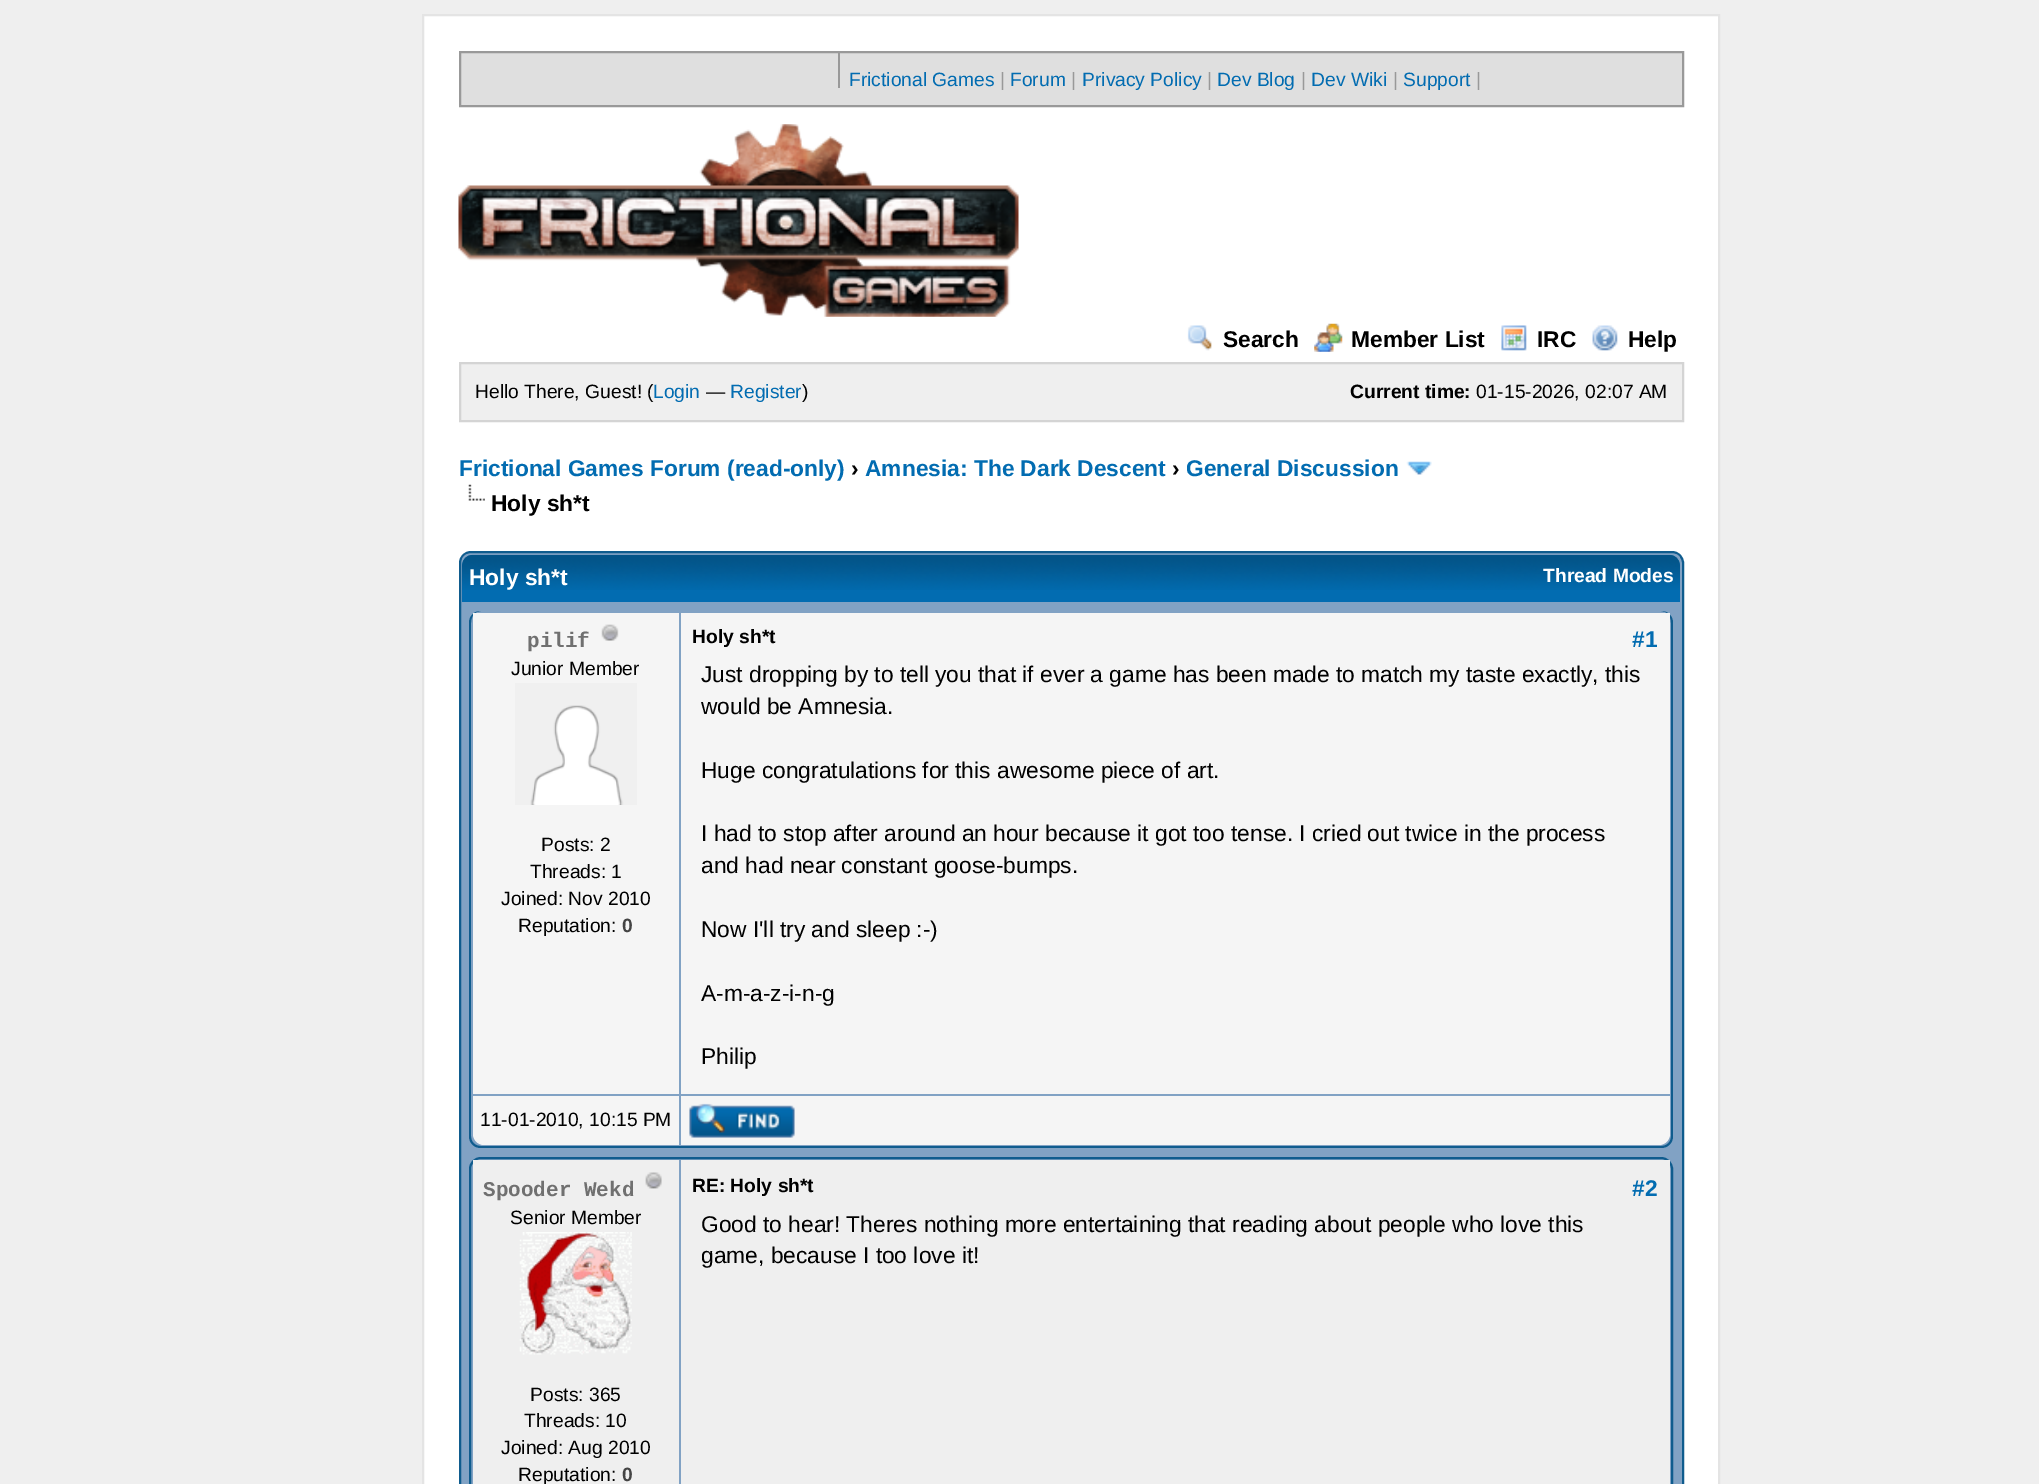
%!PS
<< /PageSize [2039 1484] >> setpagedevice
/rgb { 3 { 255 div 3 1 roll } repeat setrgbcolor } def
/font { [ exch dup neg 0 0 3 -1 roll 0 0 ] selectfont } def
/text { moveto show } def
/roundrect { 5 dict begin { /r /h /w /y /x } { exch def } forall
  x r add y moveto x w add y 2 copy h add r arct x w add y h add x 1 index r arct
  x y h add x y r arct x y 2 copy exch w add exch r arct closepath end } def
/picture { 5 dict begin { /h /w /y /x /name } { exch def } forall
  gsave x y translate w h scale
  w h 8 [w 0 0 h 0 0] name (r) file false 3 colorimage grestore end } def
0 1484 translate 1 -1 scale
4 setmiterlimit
239 239 239 rgb
0 0 2039 1484 rectfill
255 255 255 rgb
423 15 moveto 1296 0 rlineto 0 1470 rlineto -1296 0 rlineto closepath gsave fill grestore
228 228 228 rgb
2 setlinewidth
stroke
223 223 223 rgb
460 52 moveto 1223 0 rlineto 0 54 rlineto -1223 0 rlineto closepath gsave fill grestore
153 153 153 rgb
stroke
838 53 2 35 rectfill
(img_01.rgb) 458 124 561 193 picture
(img_02.rgb) 1187 325 25 26 picture
(img_03.rgb) 1314 323 29 29 picture
(img_04.rgb) 1501 325 26 26 picture
(img_05.rgb) 1592 325 26 26 picture
239 239 239 rgb
460 363 moveto 1223 0 rlineto 0 58 rlineto -1223 0 rlineto closepath gsave fill grestore
212 212 212 rgb
stroke
(img_06.rgb) 1406 461 26 14 picture
(img_07.rgb) 468 484 17 17 picture
129 162 196 rgb
460 552 1223 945 11 roundrect gsave fill grestore
15 92 142 rgb
stroke
2 108 177 rgb
473 555 moveto 1196 0 rlineto 6 0 11 5 11 11 rcurveto 0 36 rlineto -1218 0 rlineto 0 -36 rlineto 0 -6 5 -11 11 -11 rcurveto closepath fill
(img_08.rgb) 462 554 1218 36 picture
15 92 142 rgb
481 611 moveto 1180 0 rlineto 7 0 12 5 12 12 rcurveto 0 513 rlineto 0 7 -5 12 -12 12 rcurveto -1180 0 rlineto -7 0 -12 -5 -12 -12 rcurveto 0 -513 rlineto 0 -7 5 -12 12 -12 rcurveto closepath 481 611 moveto 1180 0 rlineto 6 0 10 5 10 12 rcurveto 0 513 rlineto 0 6 -4 10 -10 10 rcurveto -1180 0 rlineto -6 0 -10 -4 -10 -10 rcurveto 0 -513 rlineto 0 -7 4 -12 10 -12 rcurveto closepath eofill
245 245 245 rgb
473 613 206 481 rectfill
(img_09.rgb) 601 624 18 17 picture
(img_10.rgb) 515 683 122 122 picture
681 613 989 481 rectfill
473 1096 moveto 206 0 rlineto 0 49 rlineto -195 0 rlineto -6 0 -11 -5 -11 -11 rcurveto closepath fill
681 1096 moveto 989 0 rlineto 0 38 rlineto 0 6 -5 11 -11 11 rcurveto -978 0 rlineto closepath fill
(img_11.rgb) 689 1103 106 35 picture
15 92 142 rgb
470 1158 1202 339 11 roundrect stroke
239 239 239 rgb
473 1160 206 324 rectfill
(img_12.rgb) 645 1172 17 17 picture
(img_13.rgb) 519 1232 113 123 picture
681 1160 989 324 rectfill
/LiberationSans-Regular 19.25 font
2 108 177 rgb
(Frictional Games) 849 86 text
153 153 153 rgb
(|) 1000 86 text
2 108 177 rgb
(Forum) 1010 86 text
153 153 153 rgb
(|) 1071 86 text
2 108 177 rgb
(Privacy Policy) 1082 86 text
153 153 153 rgb
(|) 1207 86 text
2 108 177 rgb
(Dev Blog) 1217 86 text
153 153 153 rgb
(|) 1301 86 text
2 108 177 rgb
(Dev Wiki) 1311 86 text
153 153 153 rgb
(|) 1393 86 text
2 108 177 rgb
(Support) 1403 86 text
153 153 153 rgb
(|) 1476 86 text
/LiberationSans-Bold 22.75 font
0 0 0 rgb
(Search) 1223 347 text
(Member List) 1351 347 text
(IRC) 1537 347 text
(Help) 1628 347 text
/LiberationSans-Regular 19.25 font
(Hello There, Guest! \() 475 398 text
2 108 177 rgb
(Login) 653 398 text
0 0 0 rgb
(—) 706 398 text
2 108 177 rgb
(Register) 730 398 text
0 0 0 rgb
(\)) 802 398 text
/LiberationSans-Bold 19.25 font
(Current time:) 1350 398 text
/LiberationSans-Regular 19.25 font
(01-15-2026, 02:07 AM) 1476 398 text
/LiberationSans-Bold 22.75 font
2 108 177 rgb
(Frictional Games Forum \(read-only\)) 459 476 text
0 0 0 rgb
(›) 851 476 text
2 108 177 rgb
(Amnesia: The Dark Descent) 865 476 text
0 0 0 rgb
(›) 1172 476 text
2 108 177 rgb
(General Discussion) 1186 476 text
0 0 0 rgb
(Holy sh*t) 491 511 text
255 255 255 rgb
(Holy sh*t) 469 585 text
/LiberationSans-Bold 19.25 font
(Thread Modes) 1543 582 text
/LiberationMono-Bold 21 font
112 112 112 rgb
(pilif) 527 647 text
/LiberationSans-Regular 19.25 font
0 0 0 rgb
(Junior Member) 511 675 text
(Posts: 2) 541 851 text
(Threads: 1) 530 878 text
(Joined: Nov 2010) 501 905 text
(Reputation:) 518 932 text
/LiberationSans-Bold 19.25 font
68 68 68 rgb
(0) 622 932 text
0 0 0 rgb
(Holy sh*t) 692 643 text
/LiberationSans-Bold 22.75 font
2 108 177 rgb
(#1) 1632 647 text
/LiberationSans-Regular 22.75 font
0 0 0 rgb
(Just dropping by to tell you that if ever a game has been made to match my taste exactly, this) 701 682 text
(would be Amnesia.) 701 714 text
(Huge congratulations for this awesome piece of art.) 701 778 text
(I had to stop after around an hour because it got too tense. I cried out twice in the process) 701 841 text
(and had near constant goose-bumps.) 701 873 text
(Now I'll try and sleep :-\)) 701 937 text
(A-m-a-z-i-n-g) 701 1001 text
(Philip) 701 1064 text
/LiberationSans-Regular 19.25 font
(11-01-2010, 10:15 PM) 480 1126 text
/LiberationMono-Bold 21 font
112 112 112 rgb
(Spooder Wekd) 483 1196 text
/LiberationSans-Regular 19.25 font
0 0 0 rgb
(Senior Member) 510 1224 text
(Posts: 365) 530 1401 text
(Threads: 10) 524 1427 text
(Joined: Aug 2010) 501 1454 text
(Reputation:) 518 1481 text
/LiberationSans-Bold 19.25 font
68 68 68 rgb
(0) 622 1481 text
0 0 0 rgb
(RE: Holy sh*t) 692 1192 text
/LiberationSans-Bold 22.75 font
2 108 177 rgb
(#2) 1632 1196 text
/LiberationSans-Regular 22.75 font
0 0 0 rgb
(Good to hear! Theres nothing more entertaining that reading about people who love this) 701 1232 text
(game, because I too love it!) 701 1263 text
showpage
